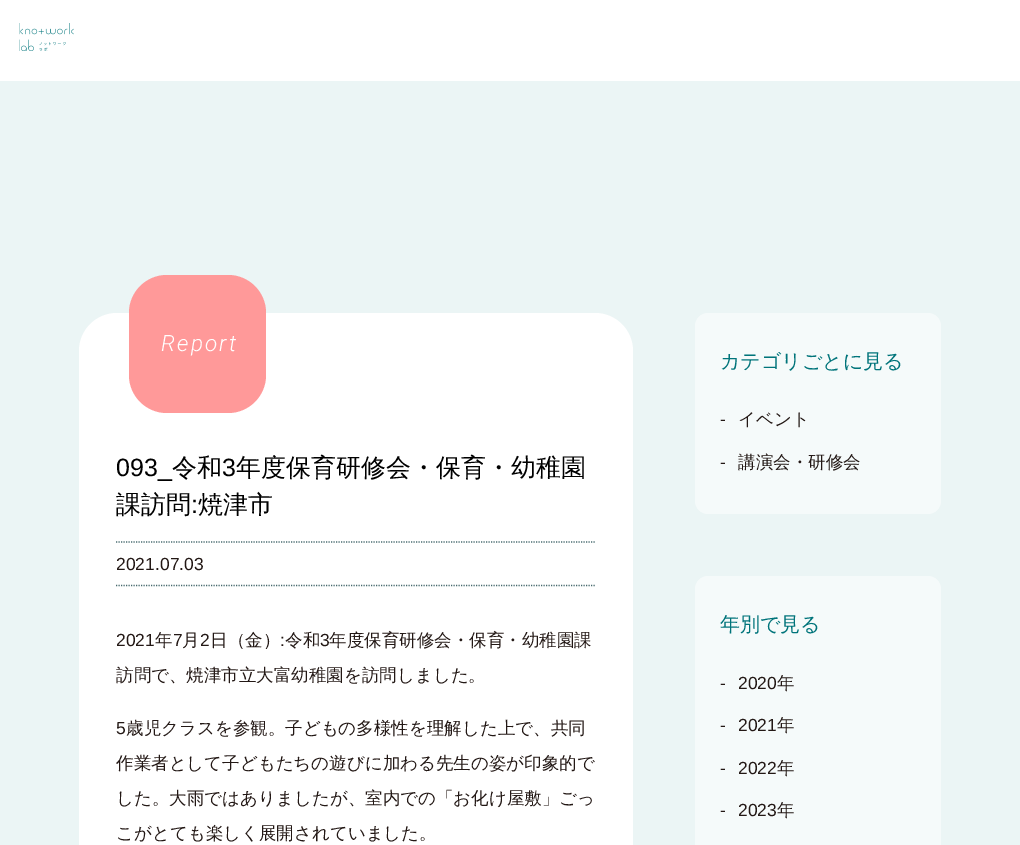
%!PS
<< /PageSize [1020 845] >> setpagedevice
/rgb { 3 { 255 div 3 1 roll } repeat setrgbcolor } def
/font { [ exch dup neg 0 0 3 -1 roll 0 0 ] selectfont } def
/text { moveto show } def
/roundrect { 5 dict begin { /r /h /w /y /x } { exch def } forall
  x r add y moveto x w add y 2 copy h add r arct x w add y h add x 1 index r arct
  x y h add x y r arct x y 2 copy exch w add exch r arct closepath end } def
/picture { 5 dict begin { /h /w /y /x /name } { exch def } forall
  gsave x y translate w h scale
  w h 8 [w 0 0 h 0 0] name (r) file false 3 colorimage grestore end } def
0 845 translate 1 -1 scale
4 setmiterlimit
235 245 245 rgb
0 0 1020 845 rectfill
255 255 255 rgb
0 0 1020 81 rectfill
(img_01.rgb) 19 23 55 28 picture
79 313 554 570 38 roundrect fill
255 153 153 rgb
129 275 137 138 38 roundrect fill
71 106 110 rgb
1.2 setlinewidth
[1.25 1.25] 0 setdash
116 542 moveto 479 0 rlineto stroke
116 585.5 moveto 479 0 rlineto stroke
245 250 250 rgb
695 313 246 201 13 roundrect fill
695 576 246 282 13 roundrect fill
/Roboto-LightItalic 22.5 font
255 255 255 rgb
161 351 moveto 2.25 0 (Report) ashow
/LiberationSans-Regular 25 font
0 0 0 rgb
(093_) 116 476 text
/WenQuanYiZenHei-Medium 25 font
(令和) 172 476 text
/LiberationSans-Regular 25 font
(3) 222 476 text
/WenQuanYiZenHei-Medium 25 font
(年度保育研修会・保育・幼稚園) 236 476 text
(課訪問) 116 513 text
/LiberationSans-Regular 25 font
(:) 191 513 text
/WenQuanYiZenHei-Medium 25 font
(焼津市) 198 513 text
/LiberationSans-Regular 17.5 font
35 24 21 rgb
(2021.07.03) 116 570 text
(2021) 116 646 text
/WenQuanYiZenHei-Medium 17.5 font
(年) 155 646 text
/LiberationSans-Regular 17.5 font
(7) 173 646 text
/WenQuanYiZenHei-Medium 17.5 font
(月) 182 646 text
/LiberationSans-Regular 17.5 font
(2) 200 646 text
/WenQuanYiZenHei-Medium 17.5 font
(日（金）) 210 646 text
/LiberationSans-Regular 17.5 font
(:) 280 646 text
/WenQuanYiZenHei-Medium 17.5 font
(令和) 285 646 text
/LiberationSans-Regular 17.5 font
(3) 320 646 text
/WenQuanYiZenHei-Medium 17.5 font
(年度保育研修会・保育・幼稚園課) 329 646 text
(訪問で、焼津市立大富幼稚園を訪問しました。) 116 681 text
/LiberationSans-Regular 17.5 font
(5) 116 734 text
/WenQuanYiZenHei-Medium 17.5 font
(歳児クラスを参観。子どもの多様性を理解した上で、共同) 126 734 text
(作業者として子どもたちの遊びに加わる先生の姿が印象的で) 116 769 text
(した。大雨ではありましたが、室内での「お化け屋敷」ごっ) 116 804 text
(こがとても楽しく展開されていました。) 116 839 text
/WenQuanYiZenHei-Medium 20 font
0 116 122 rgb
(カテゴリごとに見る) 720 368 text
/LiberationSans-Regular 17.5 font
35 24 21 rgb
(-) 720 425 text
/WenQuanYiZenHei-Medium 17.5 font
(イベント) 738 425 text
/LiberationSans-Regular 17.5 font
(-) 720 468 text
/WenQuanYiZenHei-Medium 17.5 font
(講演会・研修会) 738 468 text
/WenQuanYiZenHei-Medium 20 font
0 116 122 rgb
(年別で見る) 720 631 text
/LiberationSans-Regular 17.5 font
35 24 21 rgb
(-) 720 689 text
(2020) 738 689 text
/WenQuanYiZenHei-Medium 17.5 font
(年) 777 689 text
/LiberationSans-Regular 17.5 font
(-) 720 731 text
(2021) 738 731 text
/WenQuanYiZenHei-Medium 17.5 font
(年) 777 731 text
/LiberationSans-Regular 17.5 font
(-) 720 774 text
(2022) 738 774 text
/WenQuanYiZenHei-Medium 17.5 font
(年) 777 774 text
/LiberationSans-Regular 17.5 font
(-) 720 816 text
(2023) 738 816 text
/WenQuanYiZenHei-Medium 17.5 font
(年) 777 816 text
showpage
